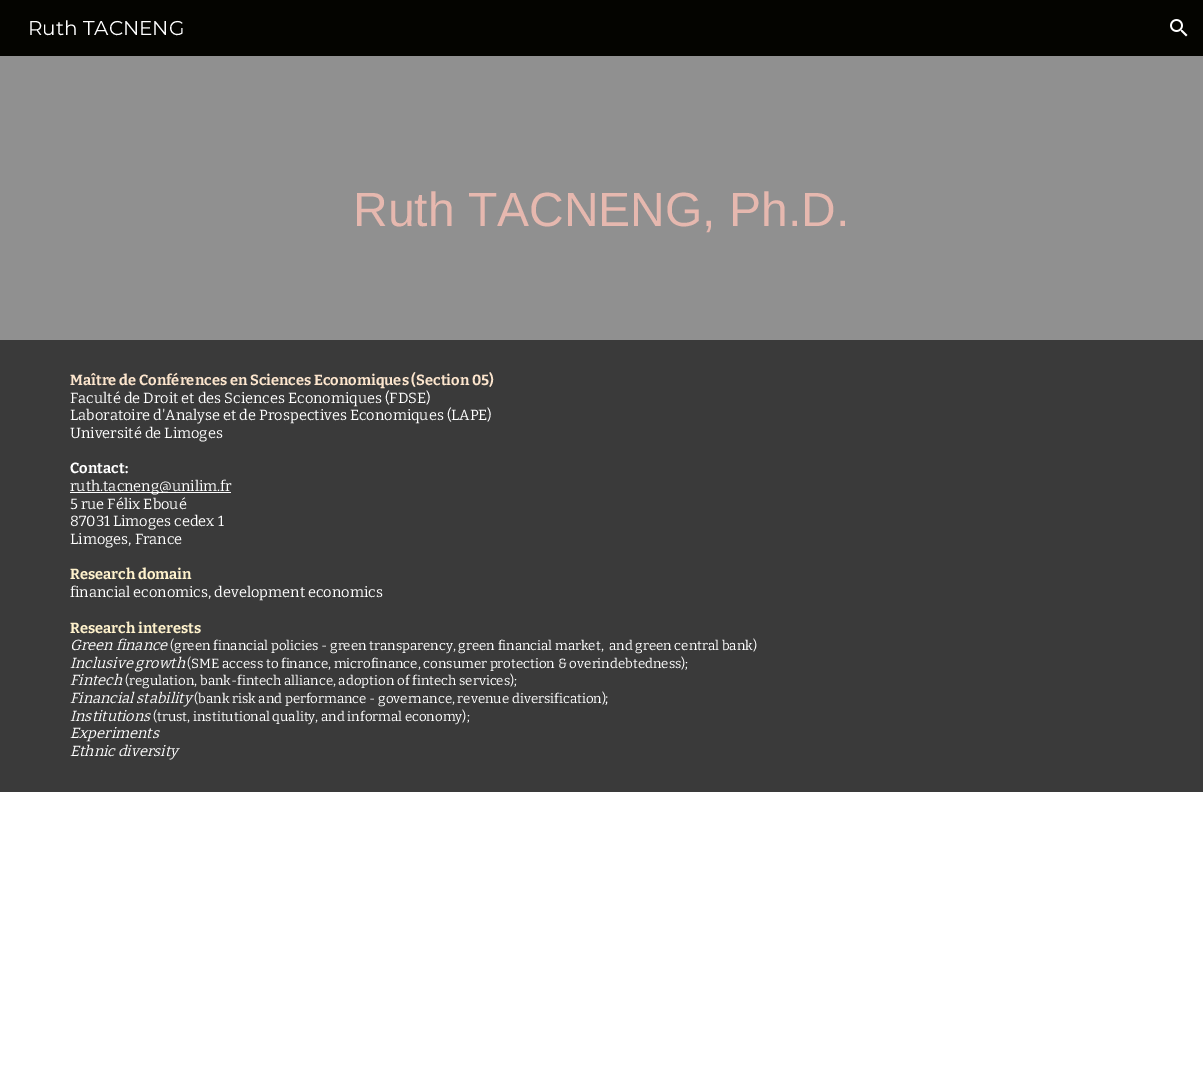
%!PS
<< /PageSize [1203 1073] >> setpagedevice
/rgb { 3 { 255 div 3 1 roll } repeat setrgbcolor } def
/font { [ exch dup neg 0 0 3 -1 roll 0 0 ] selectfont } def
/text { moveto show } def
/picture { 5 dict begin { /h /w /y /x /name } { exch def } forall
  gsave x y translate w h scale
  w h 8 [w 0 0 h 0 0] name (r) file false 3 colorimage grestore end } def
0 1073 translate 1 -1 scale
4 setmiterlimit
255 255 255 rgb
0 0 1203 1073 rectfill
4 4 0 rgb
0 0 1203 56 rectfill
(img_01.rgb) 1170 19 18 18 picture
144 144 144 rgb
0 56 1203 284 rectfill
58 58 58 rgb
0 340 1203 452 rectfill
255 255 255 rgb
70 492 161 1 rectfill
/Montserrat-Regular 20 font
(Ruth TACNENG) 28 35 text
/LiberationSans-Regular 48 font
230 184 175 rgb
(Ruth TACNENG, Ph.D.) 353 226 text
/Bitter-Bold 14.7 font
252 229 205 rgb
(Maître de Conférences en Sciences Economiques \(Section 05\)) 70 385 text
/Bitter-Regular 14.7 font
255 255 255 rgb
(Faculté de Droit et des Sciences Economiques \(FDSE\)) 70 403 text
(Laboratoire d'Analyse et de Prospectives Economiques \(LAPE\)) 70 420 text
(Université de Limoges) 70 438 text
/Bitter-Bold 14.7 font
(Contact:) 70 473 text
/Bitter-Regular 14.7 font
(ruth.tacneng@unilim.fr) 70 491 text
(5 rue Félix Eboué) 70 509 text
(87031 Limoges cedex 1) 70 526 text
(Limoges, France) 70 544 text
/Bitter-Bold 14.7 font
255 242 204 rgb
(Research domain) 70 579 text
/Bitter-Regular 14.7 font
255 255 255 rgb
(financial economics, development economics) 70 597 text
/Bitter-Bold 14.7 font
255 242 204 rgb
(Research interests) 70 633 text
/Bitter-Italic 14.7 font
255 255 255 rgb
(Green finance) 70 650 text
/Bitter-Regular 13.35 font
(\(green financial policies - green transparency, green financial market,  and green central bank\)) 170 650 text
/Bitter-Italic 14.7 font
(Inclusive growth) 70 668 text
/Bitter-Regular 13.35 font
(\(SME access to finance, microfinance, consumer protection & overindebtedness\);) 187 668 text
/Bitter-Italic 14.7 font
(Fintech) 70 685 text
/Bitter-Regular 13.35 font
(\(regulation, bank-fintech alliance, adoption of fintech services\);) 125 685 text
/Bitter-Italic 14.7 font
(Financial stability) 70 703 text
/Bitter-Regular 13.35 font
(\(bank risk and performance - governance, revenue diversification\)) 194 703 text
/Bitter-Regular 14.7 font
(;) 605 703 text
/Bitter-Italic 14.7 font
(Institutions) 70 721 text
/Bitter-Regular 13.35 font
(\(trust, institutional quality, and informal economy\);) 153 721 text
/Bitter-Italic 14.7 font
(Experiments) 70 738 text
(Ethnic diversity) 70 756 text
showpage
